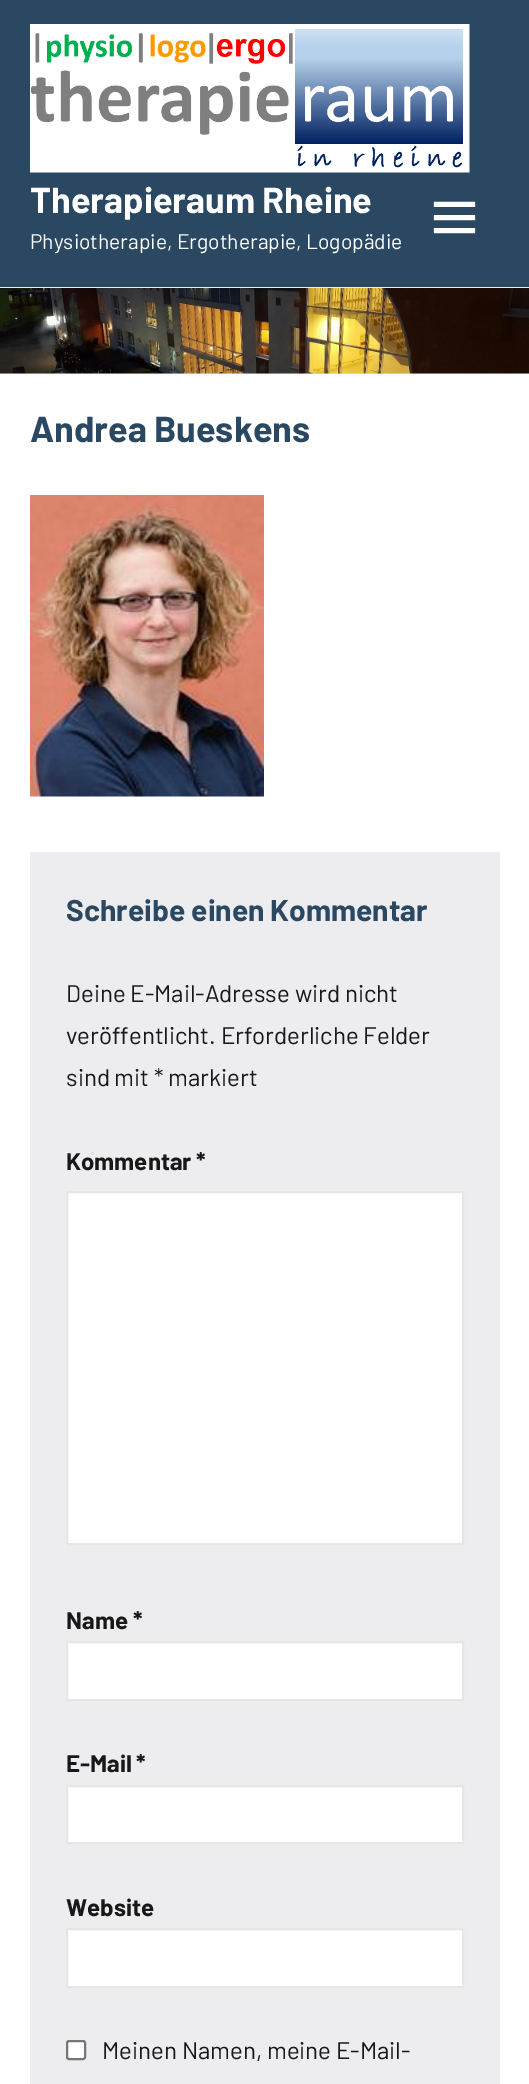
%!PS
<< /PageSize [529 2084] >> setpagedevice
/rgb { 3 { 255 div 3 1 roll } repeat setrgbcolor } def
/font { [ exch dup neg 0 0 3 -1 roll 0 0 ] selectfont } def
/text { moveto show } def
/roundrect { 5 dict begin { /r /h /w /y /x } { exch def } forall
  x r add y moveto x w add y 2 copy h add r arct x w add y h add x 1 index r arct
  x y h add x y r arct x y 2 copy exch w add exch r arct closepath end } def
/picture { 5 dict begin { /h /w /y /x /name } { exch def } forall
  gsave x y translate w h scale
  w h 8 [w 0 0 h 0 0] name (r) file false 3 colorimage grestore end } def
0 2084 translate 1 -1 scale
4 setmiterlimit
237 237 239 rgb
0 0 529 2084 rectfill
42 72 97 rgb
0 0 529 287 rectfill
(img_01.rgb) 30 24 440 149 picture
(img_02.rgb) 433 201 43 33 picture
(img_03.rgb) 0 288 529 86 picture
255 255 255 rgb
0 374 529 1710 rectfill
(img_04.rgb) 30 495 234 302 picture
237 237 239 rgb
30 852 470 1232 rectfill
255 255 255 rgb
67 1192 moveto 396 0 rlineto 0 352 rlineto -396 0 rlineto closepath gsave fill grestore
230 230 230 rgb
2 setlinewidth
stroke
255 255 255 rgb
67 1642 moveto 396 0 rlineto 0 58 rlineto -396 0 rlineto closepath gsave fill grestore
230 230 230 rgb
stroke
255 255 255 rgb
67 1786 moveto 396 0 rlineto 0 57 rlineto -396 0 rlineto closepath gsave fill grestore
230 230 230 rgb
stroke
255 255 255 rgb
67 1929 moveto 396 0 rlineto 0 58 rlineto -396 0 rlineto closepath gsave fill grestore
230 230 230 rgb
stroke
255 255 255 rgb
67 2041 18 18 2 roundrect gsave fill grestore
118 118 118 rgb
stroke
/Barlow-Bold 36 font
255 255 255 rgb
(Therapieraum Rheine) 30 213 text
/Barlow-Regular 21 font
(Physiotherapie, Ergotherapie, Logopädie) 30 249 text
/Barlow-Bold 36 font
42 72 97 rgb
(Andrea Bueskens) 30 442 text
/Barlow-Bold 30 font
(Schreibe einen Kommentar) 66 921 text
/Barlow-Regular 24 font
24 24 24 rgb
(Deine E-Mail-Adresse wird nicht) 66 1002 text
(veröffentlicht. Erforderliche Felder) 66 1044 text
(sind mit * markiert) 66 1086 text
/Barlow-Bold 24 font
(Kommentar *) 66 1170 text
(Name *) 66 1629 text
(E-Mail *) 66 1772 text
(Website) 66 1916 text
/Barlow-Regular 24 font
(Meinen Namen, meine E-Mail-) 102 2059 text
showpage
